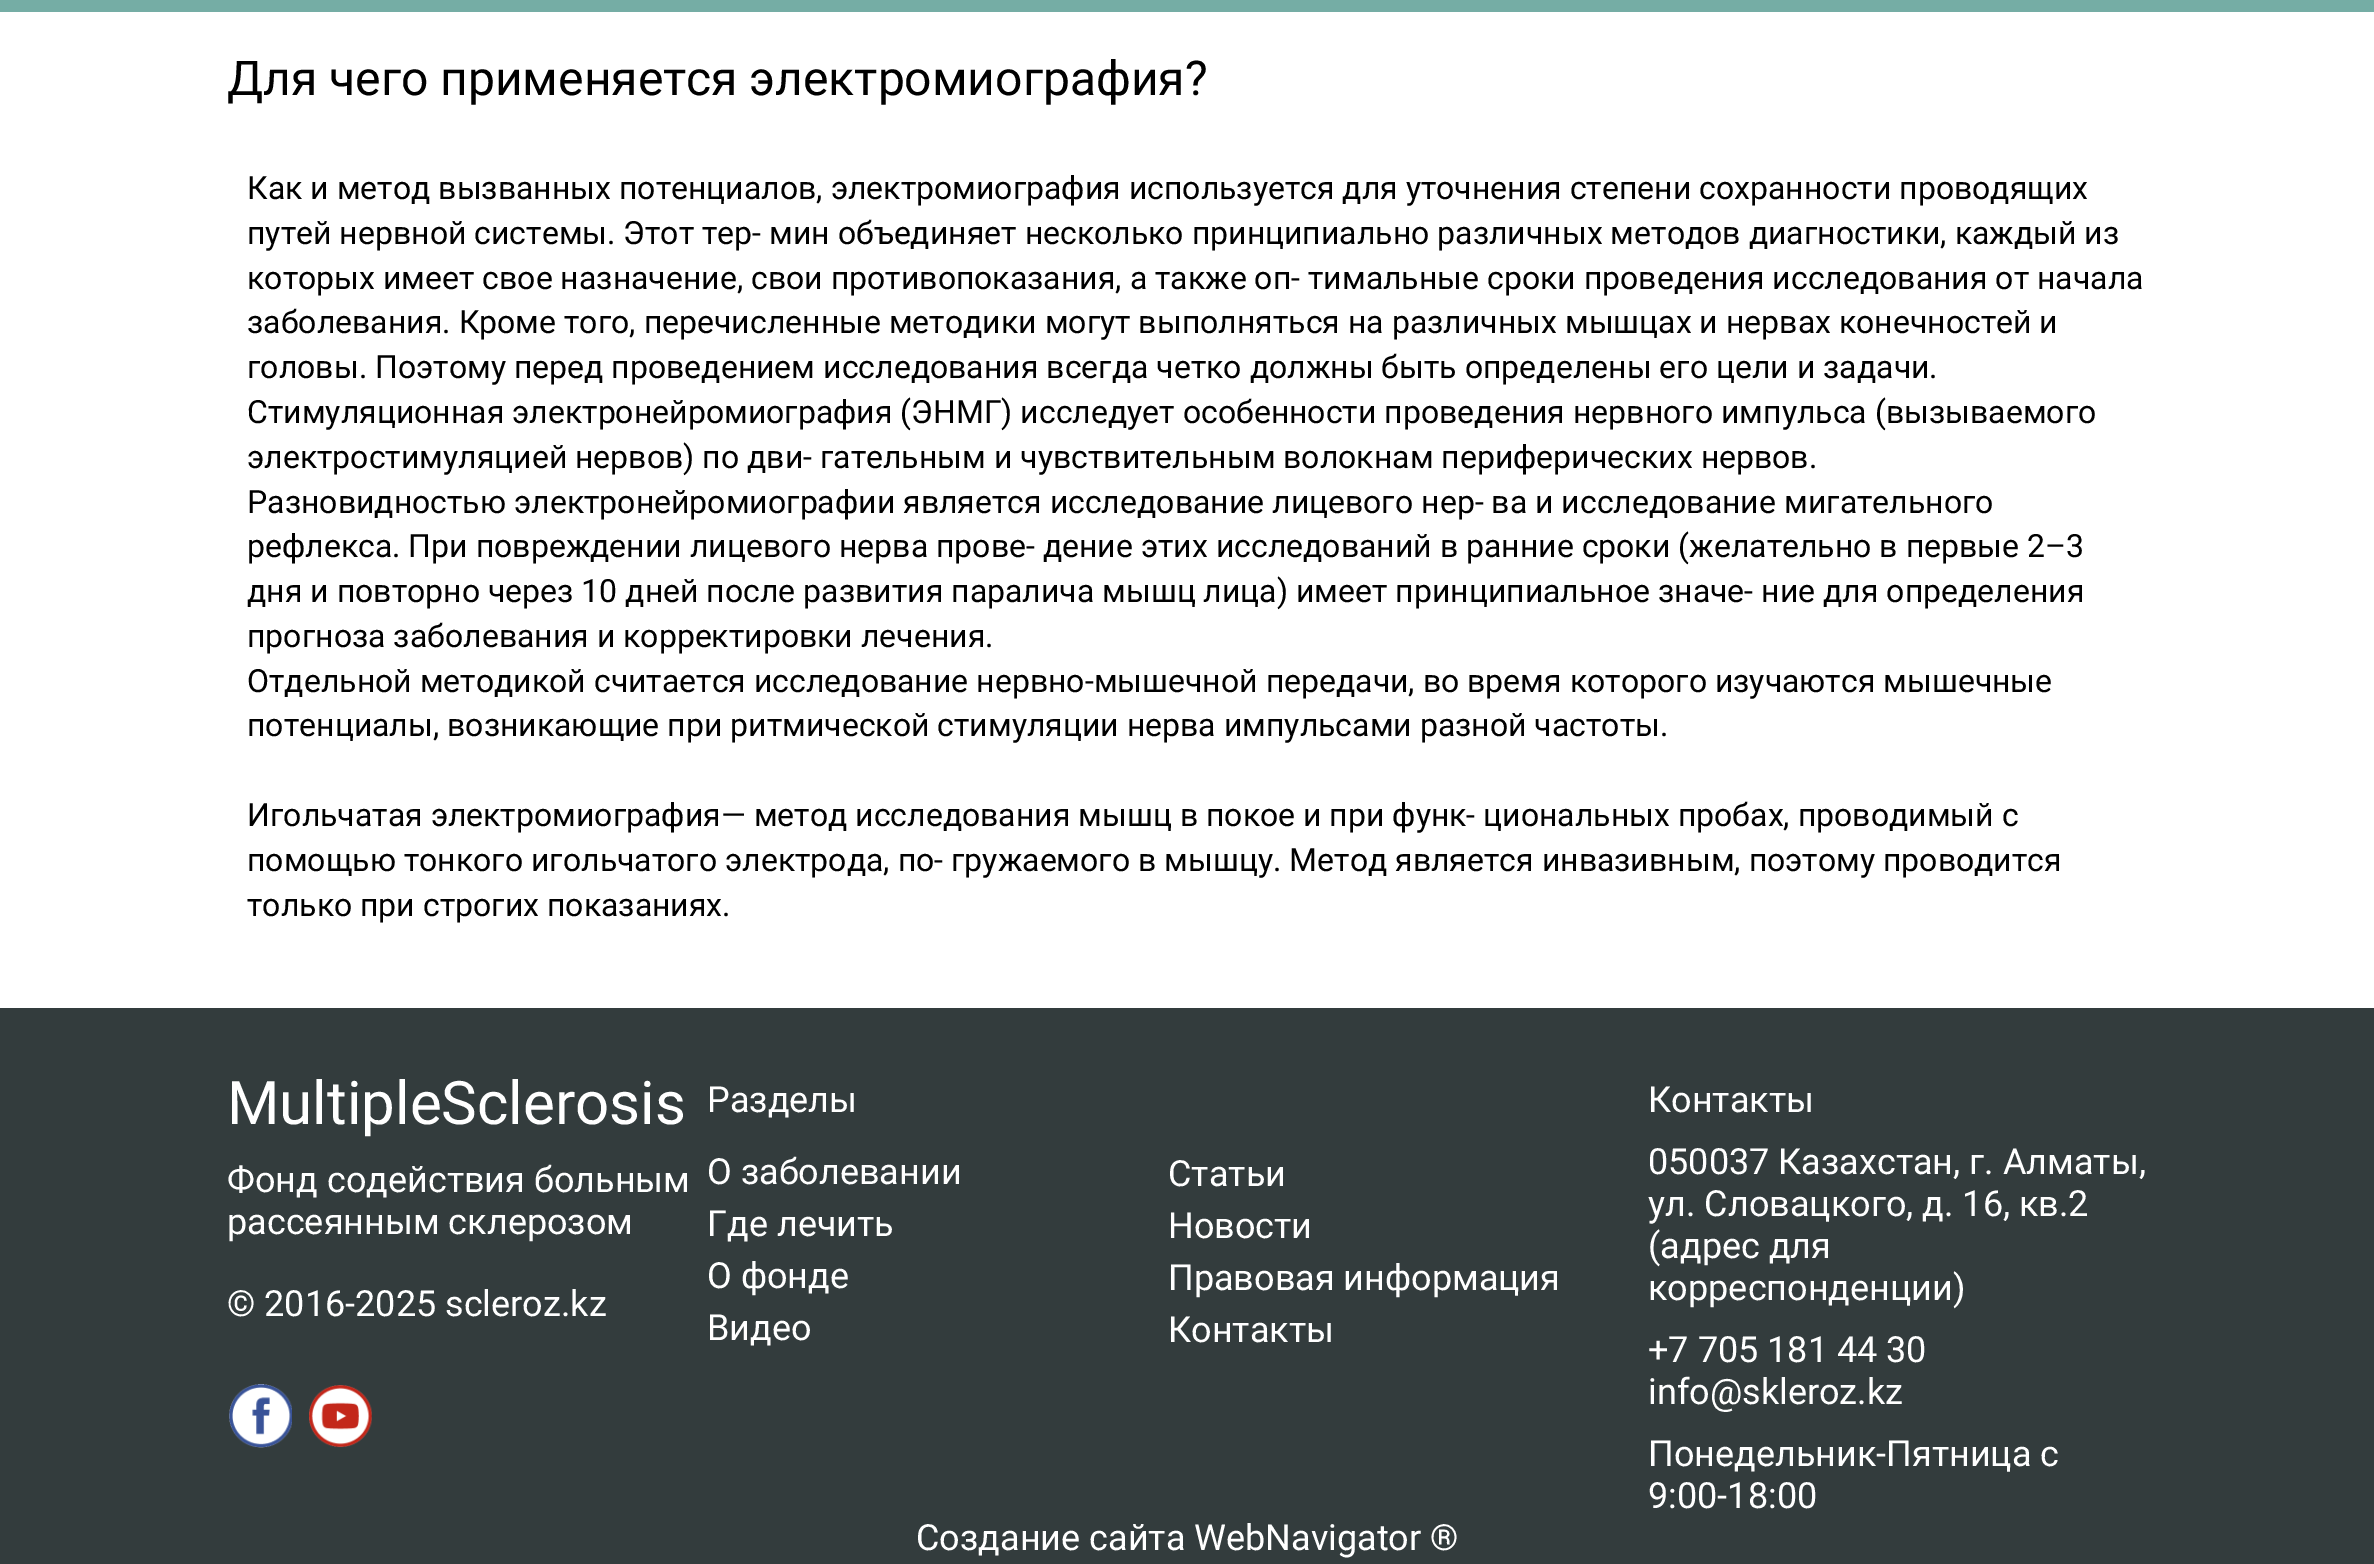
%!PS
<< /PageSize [2374 1564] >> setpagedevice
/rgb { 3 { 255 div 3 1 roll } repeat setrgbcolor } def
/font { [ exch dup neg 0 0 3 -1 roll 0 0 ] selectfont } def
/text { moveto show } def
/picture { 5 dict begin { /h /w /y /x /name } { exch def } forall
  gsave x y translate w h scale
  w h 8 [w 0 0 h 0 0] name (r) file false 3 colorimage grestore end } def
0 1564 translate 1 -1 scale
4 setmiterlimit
255 255 255 rgb
0 0 2374 1564 rectfill
117 173 165 rgb
0 0 2374 12 rectfill
51 60 61 rgb
0 1008 2374 556 rectfill
(img_01.rgb) 229 1384 63 64 picture
(img_02.rgb) 309 1385 63 63 picture
/Roboto-Regular 48 font
0 0 0 rgb
(Для чего применяется электромиография?) 227 95 text
/Roboto-Regular 32 font
(Как и метод вызванных потенциалов, электромиография используется для уточнения степени сохранности проводящих) 247 199 text
(путей нервной системы. Этот тер- мин объединяет несколько принципиально различных методов диагностики, каждый из) 247 244 text
(которых имеет свое назначение, свои противопоказания, а также оп- тимальные сроки проведения исследования от начала) 247 289 text
(заболевания. Кроме того, перечисленные методики могут выполняться на различных мышцах и нервах конечностей и) 247 333 text
(головы. Поэтому перед проведением исследования всегда четко должны быть определены его цели и задачи.) 247 378 text
(Стимуляционная электронейромиография \(ЭНМГ\) исследует особенности проведения нервного импульса \(вызываемого) 247 423 text
(электростимуляцией нервов\) по дви- гательным и чувствительным волокнам периферических нервов.) 247 468 text
(Разновидностью электронейромиографии является исследование лицевого нер- ва и исследование мигательного) 247 513 text
(рефлекса. При повреждении лицевого нерва прове- дение этих исследований в ранние сроки \(желательно в первые 2–3) 247 557 text
(дня и повторно через 10 дней после развития паралича мышц лица\) имеет принципиальное значе- ние для определения) 247 602 text
(прогноза заболевания и корректировки лечения.) 247 647 text
(Отдельной методикой считается исследование нервно-мышечной передачи, во время которого изучаются мышечные) 247 692 text
(потенциалы, возникающие при ритмической стимуляции нерва импульсами разной частоты.) 247 736 text
(Игольчатая электромиография— метод исследования мышц в покое и при функ- циональных пробах, проводимый с) 247 826 text
(помощью тонкого игольчатого электрода, по- гружаемого в мышцу. Метод является инвазивным, поэтому проводится) 247 871 text
(только при строгих показаниях.) 247 916 text
/Roboto-Regular 60 font
255 255 255 rgb
(MultipleSclerosis) 227 1124 text
/Roboto-Regular 36 font
(Фонд содействия больным) 227 1192 text
(рассеянным склерозом) 227 1234 text
(© 2016-2025 scleroz.kz) 227 1316 text
(Разделы) 707 1112 text
(О заболевании) 707 1184 text
(Где лечить) 707 1236 text
(О фонде) 707 1288 text
(Видео) 707 1340 text
(Статьи) 1168 1186 text
(Новости) 1168 1238 text
(Правовая информация) 1168 1290 text
(Контакты) 1168 1342 text
(Контакты) 1648 1112 text
(050037 Казахстан, г. Алматы,) 1648 1174 text
(ул. Словацкого, д. 16, кв.2) 1648 1216 text
(\(адрес для) 1648 1258 text
(корреспонденции\)) 1648 1300 text
(+7 705 181 44 30) 1648 1362 text
(info@skleroz.kz) 1648 1404 text
(Понедельник-Пятница с) 1648 1466 text
(9:00-18:00) 1648 1508 text
(Создание сайта WebNavigator ®) 916 1550 text
showpage
